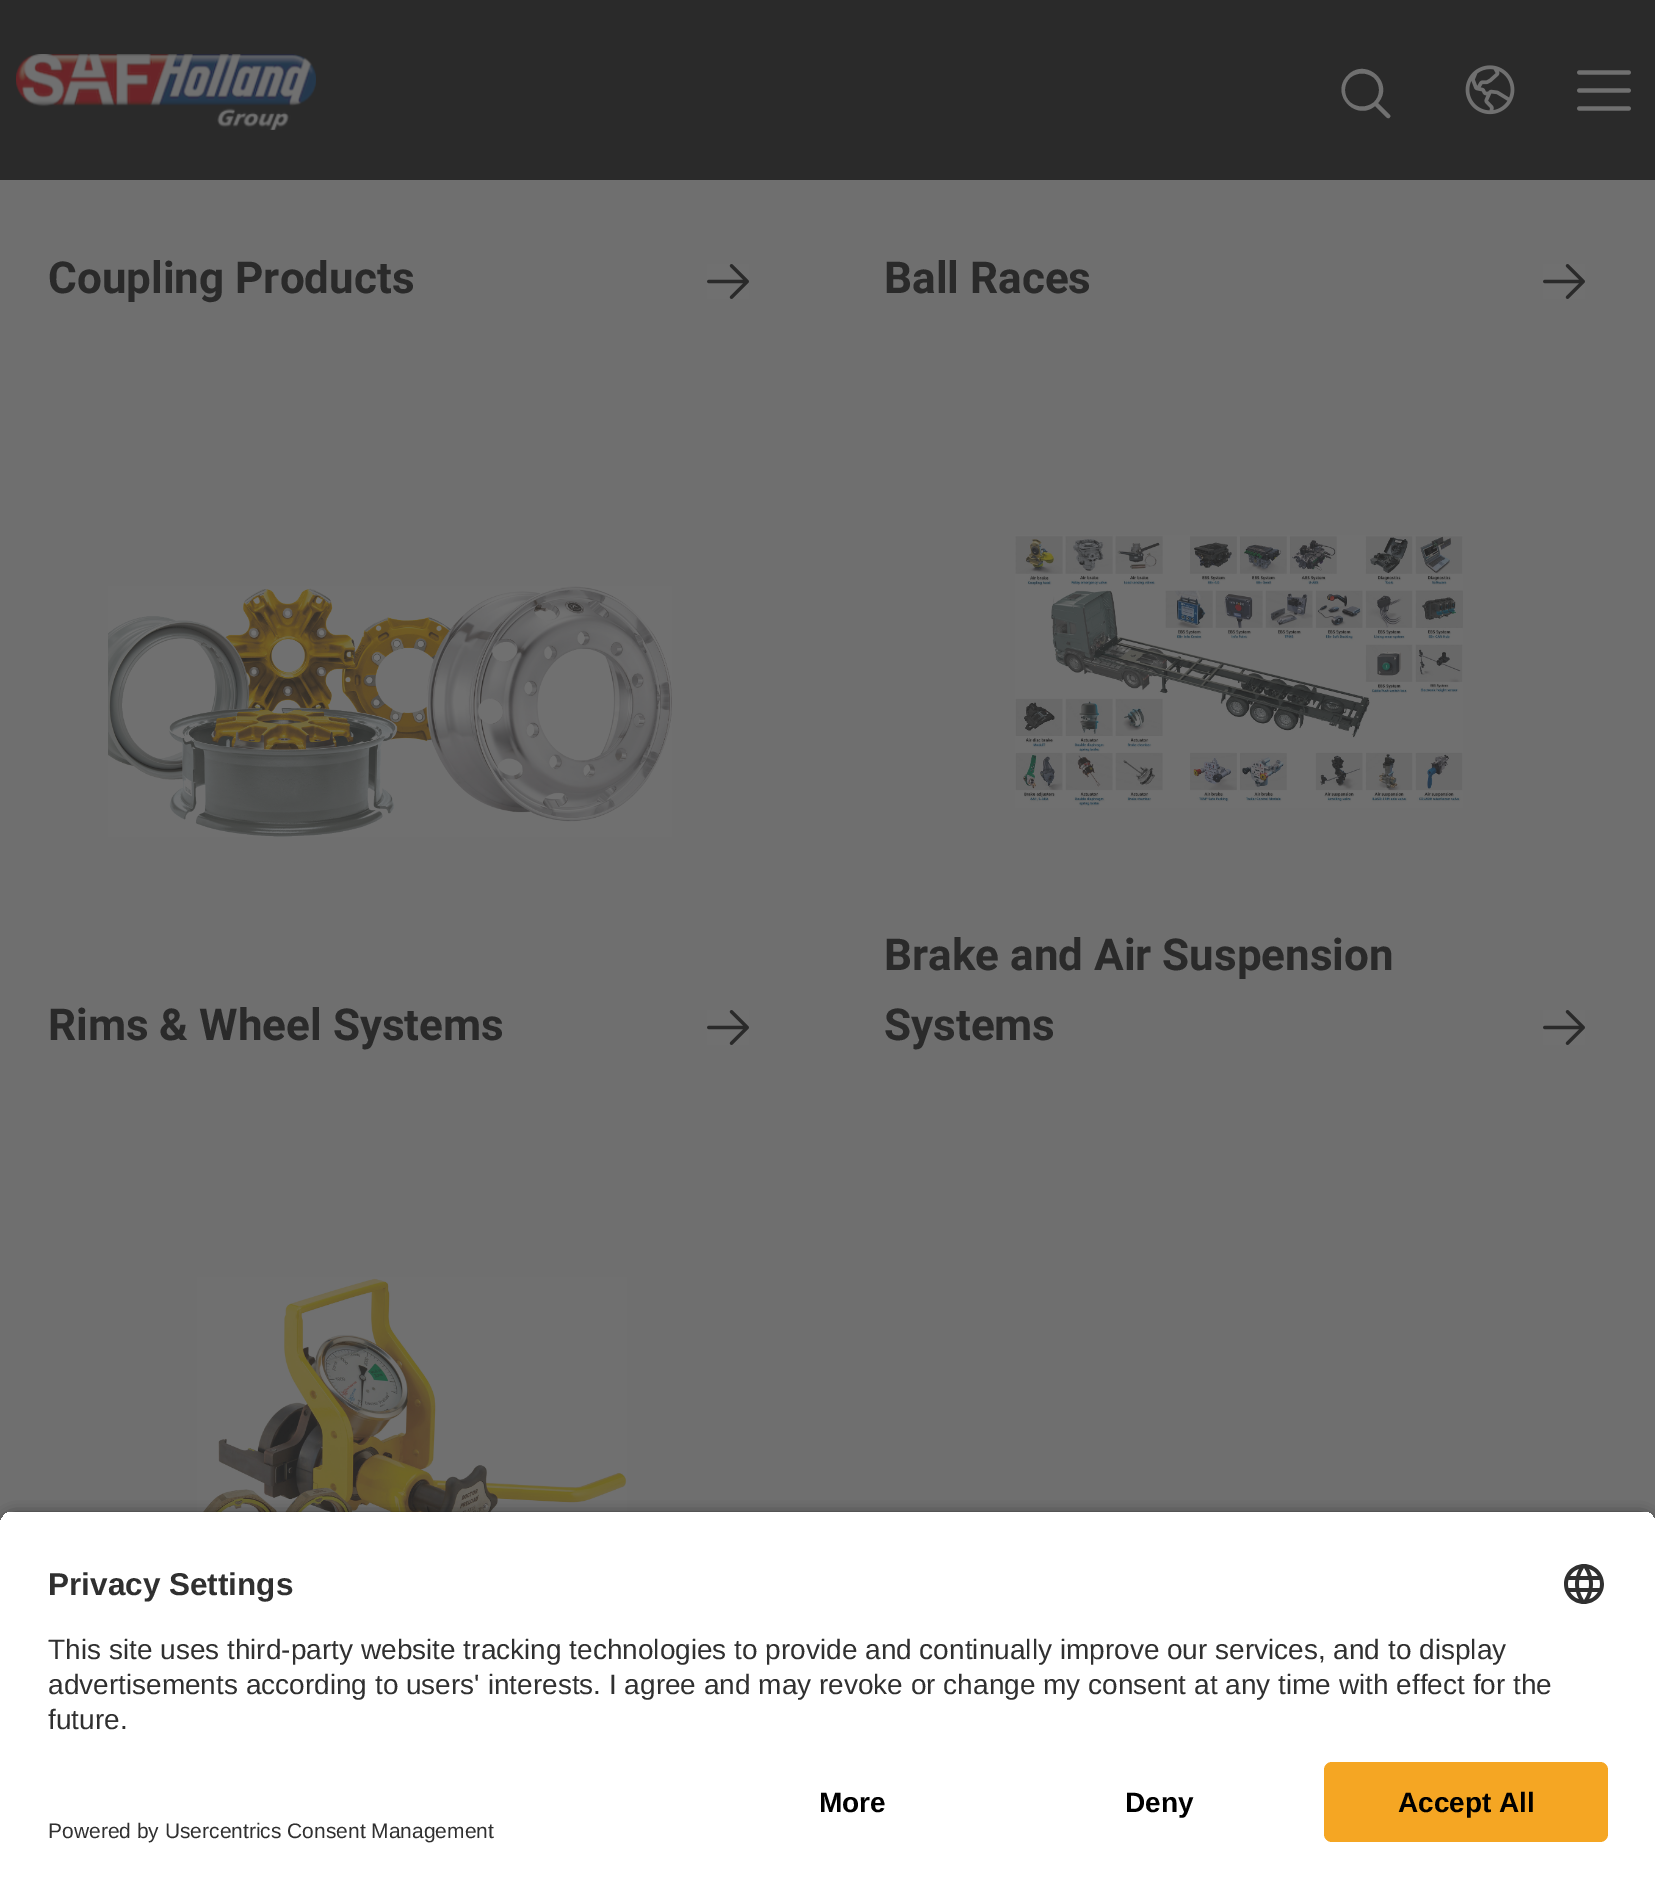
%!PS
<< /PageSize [1655 1890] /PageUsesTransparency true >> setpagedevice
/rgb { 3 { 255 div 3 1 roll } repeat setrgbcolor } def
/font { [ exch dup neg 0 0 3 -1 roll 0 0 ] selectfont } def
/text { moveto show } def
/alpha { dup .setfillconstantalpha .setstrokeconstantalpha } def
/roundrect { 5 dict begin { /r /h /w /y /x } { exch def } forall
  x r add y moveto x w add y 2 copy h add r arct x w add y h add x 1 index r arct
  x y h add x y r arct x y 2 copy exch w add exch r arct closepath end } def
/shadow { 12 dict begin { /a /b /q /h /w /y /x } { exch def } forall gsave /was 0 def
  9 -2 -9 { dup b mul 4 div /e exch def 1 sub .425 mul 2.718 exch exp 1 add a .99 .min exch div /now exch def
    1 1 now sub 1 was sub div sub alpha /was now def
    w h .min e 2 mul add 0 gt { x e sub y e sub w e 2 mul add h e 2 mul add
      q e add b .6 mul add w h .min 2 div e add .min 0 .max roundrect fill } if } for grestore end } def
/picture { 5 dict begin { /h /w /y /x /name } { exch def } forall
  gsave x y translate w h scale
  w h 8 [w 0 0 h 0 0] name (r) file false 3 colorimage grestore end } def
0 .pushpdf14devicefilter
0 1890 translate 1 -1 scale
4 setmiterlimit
111 111 111 rgb
0 0 1655 1890 rectfill
42 42 42 rgb
0 0 1655 180 rectfill
(img_01.rgb) 16 54 300 76 picture
112 112 112 rgb
1390 115 moveto -12 -12 rlineto 17 -20 -12 -46 -30 -28 rcurveto -19 19 8 47 27 31 rcurveto 8 8 rlineto 1 0 5 7 7 3 rcurveto 1 -1 0 -1 0 -2 rcurveto closepath 1345 90 moveto 0 -22 34 -22 34 0 rcurveto 0 22 -34 22 -34 0 rcurveto closepath fill
(img_02.rgb) 1465 65 50 50 picture
(img_03.rgb) 1577 70 54 41 picture
(img_04.rgb) 707 264 42 35 picture
(img_04.rgb) 1543 264 42 35 picture
(img_05.rgb) 108 586 564 251 picture
(img_04.rgb) 707 1010 42 35 picture
(img_06.rgb) 1015 535 448 273 picture
(img_04.rgb) 1543 1010 42 35 picture
(img_07.rgb) 197 1277 430 235 picture
0 0 0 rgb
0 1516 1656 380 16 7 0.8 shadow
gsave
16 1510 moveto 1624 0 rlineto 9 0 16 7 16 16 rcurveto 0 220 rlineto -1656 0 rlineto 0 -220 rlineto 0 -9 7 -16 16 -16 rcurveto closepath clip newpath
255 255 255 rgb
0 1512 1655 234 rectfill
grestore
(img_08.rgb) 1564 1564 40 40 picture
255 255 255 rgb
0 1746 1655 144 rectfill
245 166 35 rgb
1324 1762 284 80 8 roundrect fill
/Roboto-Bold 44 font
42 42 42 rgb
(Coupling Products) 48 293 text
(Ball Races) 884 293 text
(Rims & Wheel Systems) 48 1040 text
(Brake and Air Suspension) 884 970 text
(Systems) 884 1040 text
/LiberationSans-Bold 31.5 font
48 48 48 rgb
(Privacy Settings) 48 1595 text
/LiberationSans-Regular 28 font
(This site uses third-party website tracking technologies to provide and continually improve our services, and to display) 48 1659 text
(advertisements according to users' interests. I agree and may revoke or change my consent at any time with effect for the) 48 1694 text
(future.) 48 1729 text
/LiberationSans-Bold 28 font
0 0 0 rgb
(More) 819 1812 text
(Deny) 1125 1812 text
(Accept All) 1398 1812 text
/LiberationSans-Regular 21 font
48 48 48 rgb
(Powered by Usercentrics Consent Management) 48 1838 text
.poppdf14devicefilter showpage
